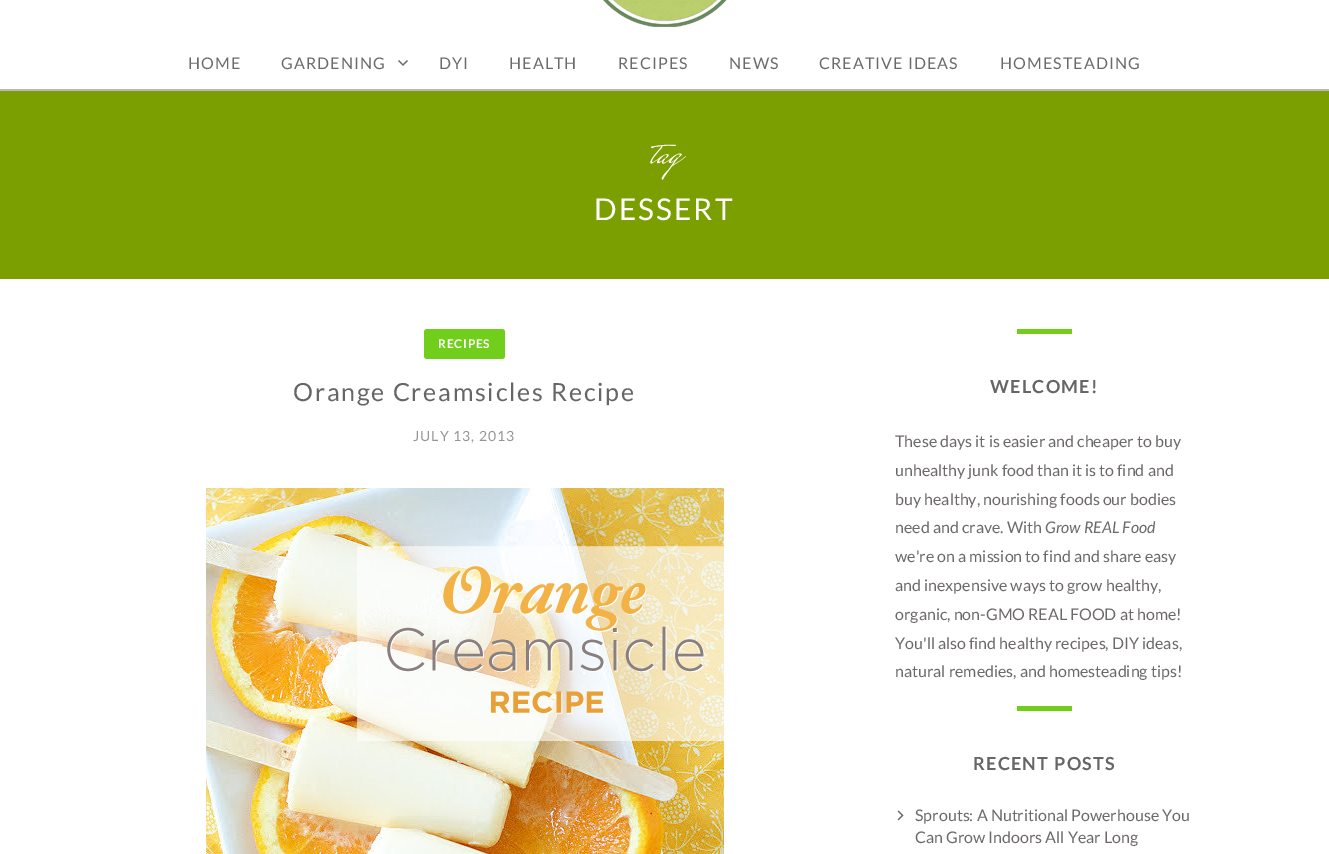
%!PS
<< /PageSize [1329 854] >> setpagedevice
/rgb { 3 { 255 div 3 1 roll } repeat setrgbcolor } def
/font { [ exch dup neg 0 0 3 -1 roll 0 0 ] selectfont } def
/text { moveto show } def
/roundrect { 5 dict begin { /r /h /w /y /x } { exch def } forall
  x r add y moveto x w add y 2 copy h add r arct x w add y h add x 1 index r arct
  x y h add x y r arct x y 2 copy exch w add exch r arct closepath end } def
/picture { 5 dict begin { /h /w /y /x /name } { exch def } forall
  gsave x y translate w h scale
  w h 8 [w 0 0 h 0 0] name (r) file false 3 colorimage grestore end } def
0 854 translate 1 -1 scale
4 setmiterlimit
255 255 255 rgb
0 0 1329 854 rectfill
(img_01.rgb) 603 0 124 27 picture
186 184 185 rgb
0 89 1329 2 rectfill
(img_02.rgb) 398 60 10 6 picture
123 158 0 rgb
0 91 1329 188 rectfill
113 206 26 rgb
424 329 81 30 3 roundrect fill
(img_03.rgb) 206 488 518 366 picture
1017 329 55 5 rectfill
1017 706 55 5 rectfill
(img_04.rgb) 897 810 7 11 picture
/Lato-Regular 16 font
109 104 108 rgb
188 69 moveto 1.1 0 (HOME) ashow
281 69 moveto 1.1 0 (GARDENING) ashow
439 69 moveto 1.1 0 (DYI) ashow
509 69 moveto 1.1 0 (HEALTH) ashow
618 69 moveto 1.1 0 (RECIPES) ashow
729 69 moveto 1.1 0 (NEWS) ashow
819 69 moveto 1.1 0 (CREATIVE IDEAS) ashow
1000 69 moveto 1.1 0 (HOMESTEADING) ashow
/MrsSaintDelafield-Regular 40 font
255 255 255 rgb
(tag) 649 163 text
/Lato-Regular 30 font
594 220 moveto 2 0 (DESSERT) ashow
/Lato-Bold 12 font
438 348 moveto 0.75 0 (RECIPES) ashow
/Lato-Regular 25 font
102 102 102 rgb
293 401 moveto 1.75 0 (Orange Creamsicles Recipe) ashow
/Lato-Regular 14 font
149 149 149 rgb
413 441 moveto 1 0 (JULY 13, 2013) ashow
/Lato-Bold 18 font
102 102 102 rgb
990 393 moveto 1.25 0 (WELCOME!) ashow
/Lato-Regular 16 font
109 104 108 rgb
(These days it is easier and cheaper to buy) 895 447 text
(unhealthy junk food than it is to find and) 895 476 text
(buy healthy, nourishing foods our bodies) 895 505 text
(need and crave. With) 895 533 text
/Lato-Italic 16 font
(Grow REAL Food) 1045 533 text
/Lato-Regular 16 font
(we're on a mission to find and share easy) 895 562 text
(and inexpensive ways to grow healthy,) 895 591 text
(organic, non-GMO REAL FOOD at home!) 895 620 text
(You'll also find healthy recipes, DIY ideas,) 895 649 text
(natural remedies, and homesteading tips!) 895 677 text
/Lato-Bold 18 font
102 102 102 rgb
973 770 moveto 1.25 0 (RECENT POSTS) ashow
/Lato-Regular 16 font
109 104 108 rgb
(Sprouts: A Nutritional Powerhouse You) 915 821 text
(Can Grow Indoors All Year Long) 915 843 text
showpage
